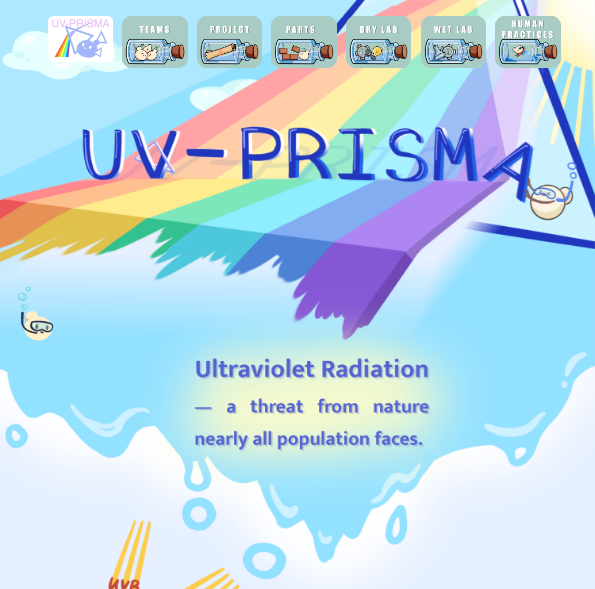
%!PS
<< /PageSize [595 589] >> setpagedevice
/rgb { 3 { 255 div 3 1 roll } repeat setrgbcolor } def
/roundrect { 5 dict begin { /r /h /w /y /x } { exch def } forall
  x r add y moveto x w add y 2 copy h add r arct x w add y h add x 1 index r arct
  x y h add x y r arct x y 2 copy exch w add exch r arct closepath end } def
/picture { 5 dict begin { /h /w /y /x /name } { exch def } forall
  gsave x y translate w h scale
  w h 8 [w 0 0 h 0 0] name (r) file false 3 colorimage grestore end } def
0 589 translate 1 -1 scale
4 setmiterlimit
255 255 255 rgb
0 0 595 589 rectfill
(img_01.rgb) 0 0 595 589 picture
(img_02.rgb) 18 286 36 55 picture
(img_03.rgb) 48 16 65 46 picture
168 204 195 rgb
122 16 66 52 10 roundrect fill
(img_04.rgb) 125 25 60 40 picture
197 16 65 52 10 roundrect fill
(img_05.rgb) 200 25 59 40 picture
271 16 66 52 10 roundrect fill
(img_06.rgb) 274 26 60 39 picture
346 16 65 52 10 roundrect fill
(img_07.rgb) 349 26 59 39 picture
421 16 65 52 10 roundrect fill
(img_08.rgb) 424 26 59 39 picture
495 16 66 52 10 roundrect fill
(img_09.rgb) 498 20 60 45 picture
showpage
